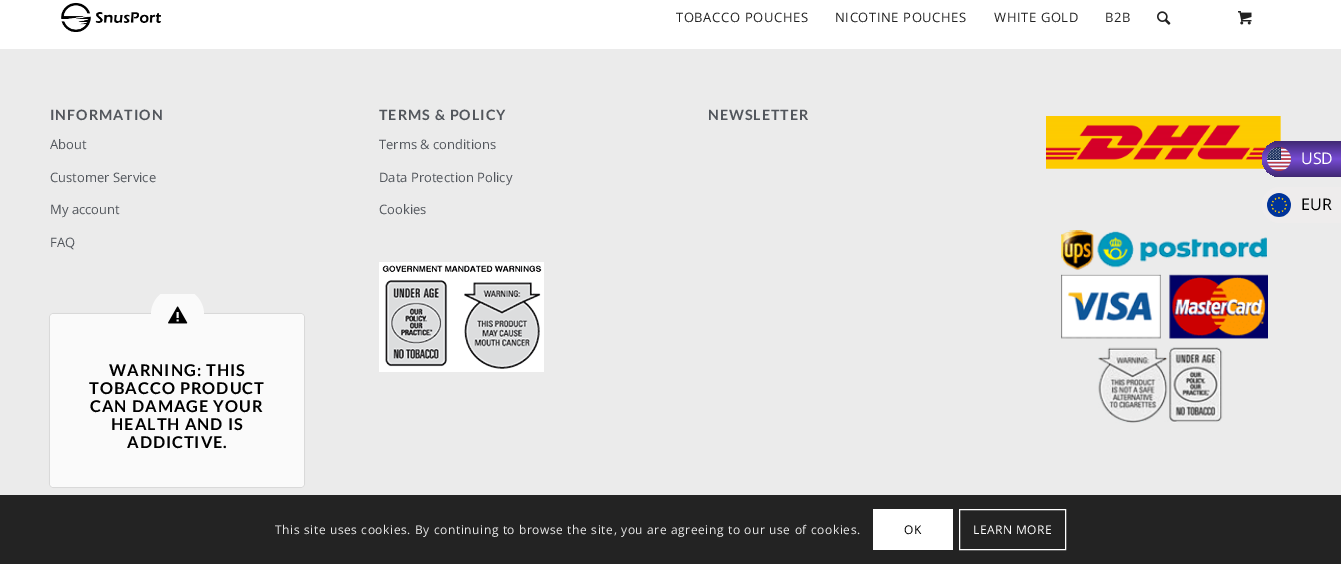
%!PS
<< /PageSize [1341 564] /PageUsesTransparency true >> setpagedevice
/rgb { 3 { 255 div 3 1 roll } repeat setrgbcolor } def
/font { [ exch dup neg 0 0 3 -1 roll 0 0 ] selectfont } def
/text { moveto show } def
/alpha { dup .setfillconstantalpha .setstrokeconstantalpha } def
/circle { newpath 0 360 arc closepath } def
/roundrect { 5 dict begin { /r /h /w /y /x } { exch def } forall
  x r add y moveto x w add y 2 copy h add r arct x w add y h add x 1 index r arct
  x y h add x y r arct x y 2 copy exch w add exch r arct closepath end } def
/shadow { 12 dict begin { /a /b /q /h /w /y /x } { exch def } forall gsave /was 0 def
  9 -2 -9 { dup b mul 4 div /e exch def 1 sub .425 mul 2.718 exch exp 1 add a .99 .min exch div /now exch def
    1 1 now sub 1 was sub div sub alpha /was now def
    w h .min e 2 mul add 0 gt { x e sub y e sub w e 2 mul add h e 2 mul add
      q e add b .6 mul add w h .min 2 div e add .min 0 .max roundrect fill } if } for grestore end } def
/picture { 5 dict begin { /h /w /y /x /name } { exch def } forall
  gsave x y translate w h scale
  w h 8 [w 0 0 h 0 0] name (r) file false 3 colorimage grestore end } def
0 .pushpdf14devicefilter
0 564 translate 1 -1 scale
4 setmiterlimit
255 255 255 rgb
0 0 1341 564 rectfill
(img_01.rgb) 61 2 100 30 picture
(img_02.rgb) 1157 11 14 14 picture
(img_03.rgb) 1238 11 14 14 picture
235 235 235 rgb
0 49 1341 446 rectfill
0 0 0 rgb
50 314 254 173 3 0.5 0.3 shadow
250 250 250 rgb
50 314 254 173 3 roundrect fill
gsave
50 294 254 223 rectclip
177.5 314.5 26.5 circle fill
grestore
(img_04.rgb) 168 306 20 18 picture
(img_05.rgb) 379 262 165 110 picture
(img_06.rgb) 1046 116 235 53 picture
(img_07.rgb) 1061 230 207 193 picture
gsave 1280 141 moveto 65 0 rlineto 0 36 rlineto -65 0 rlineto -10 0 -18 -8 -18 -18 rcurveto 0 -10 8 -18 18 -18 rcurveto closepath clip newpath
<< /ShadingType 2 /ColorSpace /DeviceRGB /Coords [1310 141 1310 177] /Extend [true true] /Function << /FunctionType 3 /Domain [0 1] /Functions [<< /FunctionType 2 /Domain [0 1] /C0 [0.251 0.161 0.451] /C1 [0.463 0.294 0.827] /N 1 >> << /FunctionType 2 /Domain [0 1] /C0 [0.463 0.294 0.827] /C1 [0.251 0.157 0.447] /N 1 >>] /Bounds [0.5] /Encode [0 1 0 1] >> >> shfill grestore
(img_08.rgb) 1267 147 24 24 picture
238 236 236 rgb
1280 187 moveto 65 0 rlineto 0 36 rlineto -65 0 rlineto -10 0 -18 -8 -18 -18 rcurveto 0 -10 8 -18 18 -18 rcurveto closepath fill
(img_09.rgb) 1267 193 24 24 picture
35 35 35 rgb
0 495 1341 69 rectfill
255 255 255 rgb
873 509 80 41 rectfill
959.5 509.5 106 40 rectstroke
/OpenSans-Regular 13 font
33 33 33 rgb
676 22 moveto 0.6 0 (TOBACCO POUCHES) ashow
835 22 moveto 0.6 0 (NICOTINE POUCHES) ashow
994 22 moveto 0.6 0 (WHITE GOLD) ashow
1105 22 moveto 0.6 0 (B2B) ashow
/Lato-Bold 14.25 font
82 86 92 rgb
50 120 moveto 1 0 (INFORMATION) ashow
/OpenSans-Regular 13 font
(About) 50 149 text
(Customer Service) 50 182 text
(My account) 50 214 text
(FAQ) 50 247 text
/Lato-Bold 16.25 font
0 0 0 rgb
109 376 moveto 1 0 (WARNING: THIS) ashow
89 394 moveto 1 0 (TOBACCO PRODUCT) ashow
90 412 moveto 1 0 (CAN DAMAGE YOUR) ashow
111 430 moveto 1 0 (HEALTH AND IS) ashow
127 448 moveto 1 0 (ADDICTIVE.) ashow
/Lato-Bold 14.25 font
82 86 92 rgb
379 120 moveto 1 0 (TERMS & POLICY) ashow
/OpenSans-Regular 13 font
(Terms & conditions) 379 149 text
(Data Protection Policy) 379 182 text
(Cookies) 379 214 text
/Lato-Bold 14.25 font
708 120 moveto 1 0 (NEWSLETTER) ashow
/OpenSans-Regular 16 font
255 255 255 rgb
(USD) 1301 164 text
0 0 0 rgb
(EUR) 1301 210 text
/OpenSans-Regular 12 font
233 233 233 rgb
275 534 moveto 0.6 0 (This site uses cookies. By continuing to browse the site, you are agreeing to our use of cookies.) ashow
0 0 0 rgb
904 534 moveto 0.5 0 (OK) ashow
255 255 255 rgb
973 534 moveto 0.5 0 (LEARN MORE) ashow
.poppdf14devicefilter showpage
